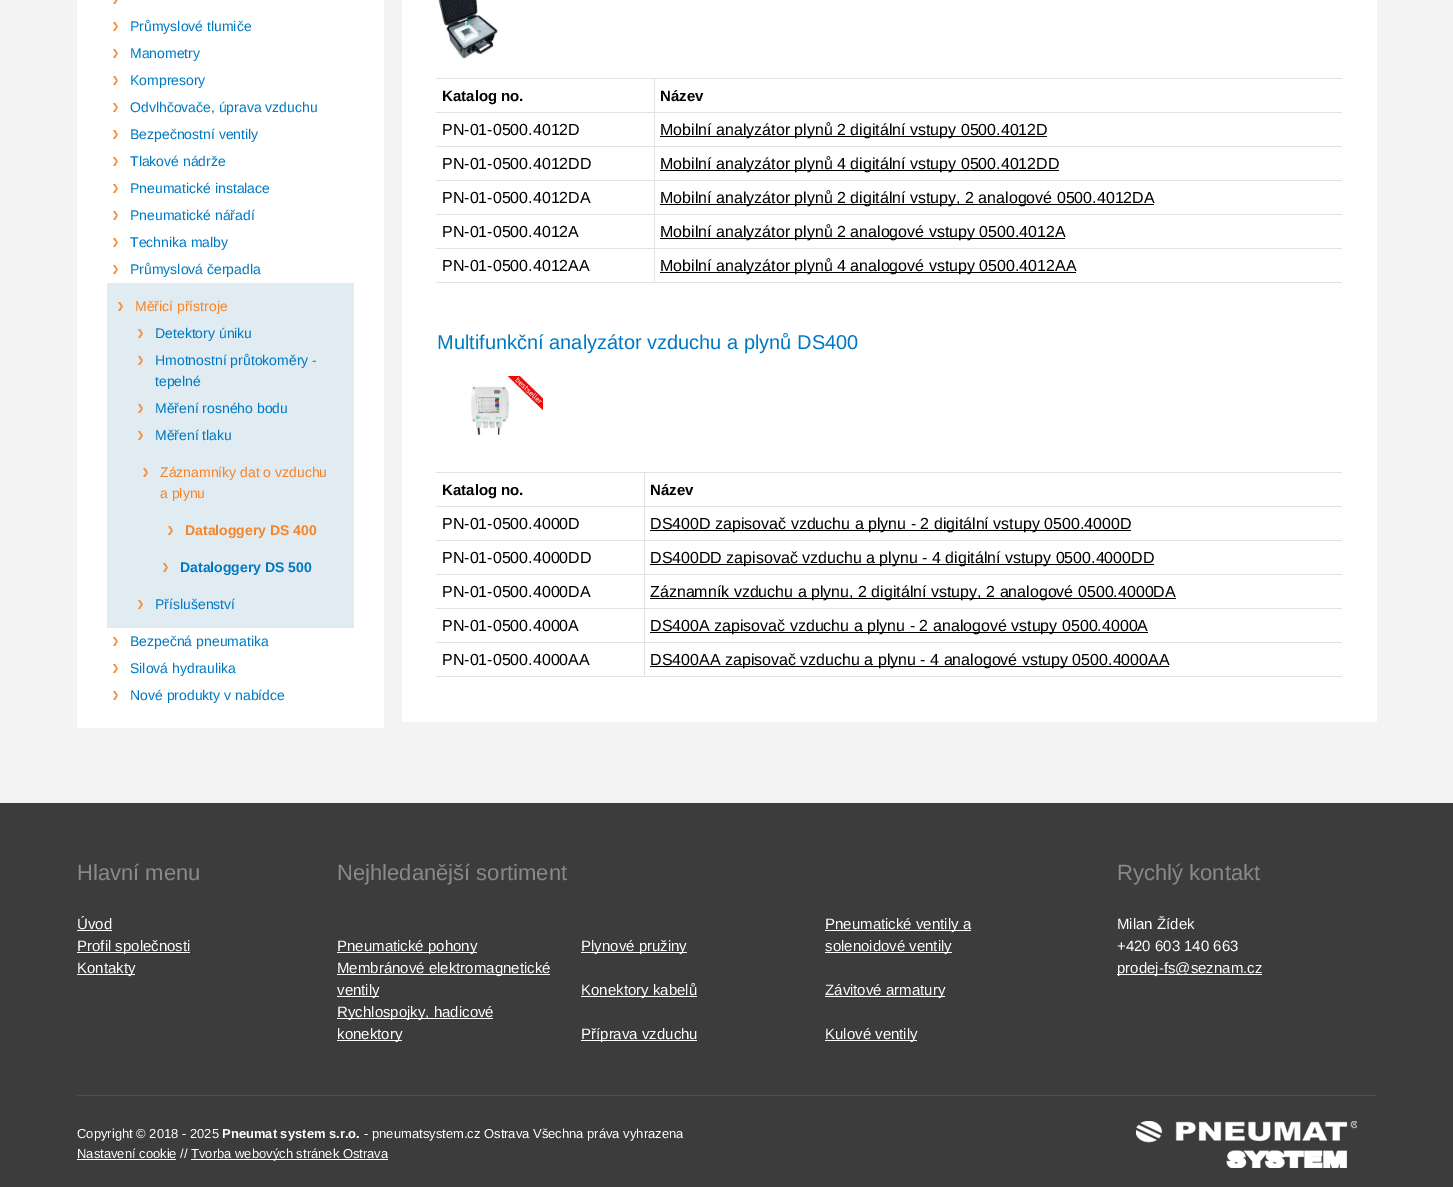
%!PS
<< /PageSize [1453 1187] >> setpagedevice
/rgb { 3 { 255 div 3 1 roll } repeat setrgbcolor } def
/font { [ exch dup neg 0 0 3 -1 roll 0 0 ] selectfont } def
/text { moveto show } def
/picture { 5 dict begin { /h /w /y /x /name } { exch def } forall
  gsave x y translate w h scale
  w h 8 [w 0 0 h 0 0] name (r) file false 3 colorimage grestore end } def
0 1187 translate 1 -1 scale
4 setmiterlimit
60 60 60 rgb
0 0 1453 1187 rectfill
243 243 243 rgb
0 0 1453 803 rectfill
255 255 255 rgb
77 0 307 728 rectfill
(img_01.rgb) 113 0 5 4 picture
(img_02.rgb) 113 22 5 9 picture
(img_02.rgb) 113 49 5 9 picture
(img_02.rgb) 113 76 5 9 picture
(img_02.rgb) 113 103 5 9 picture
(img_02.rgb) 113 130 5 9 picture
(img_02.rgb) 113 157 5 9 picture
(img_02.rgb) 113 184 5 9 picture
(img_02.rgb) 113 211 5 9 picture
(img_02.rgb) 113 238 5 9 picture
(img_02.rgb) 113 265 5 9 picture
225 236 242 rgb
107 283 247 345 rectfill
(img_03.rgb) 118 302 5 9 picture
(img_03.rgb) 138 329 5 9 picture
(img_03.rgb) 138 356 5 9 picture
(img_03.rgb) 138 404 5 9 picture
(img_03.rgb) 138 431 5 9 picture
(img_03.rgb) 143 468 5 9 picture
(img_03.rgb) 168 526 5 9 picture
(img_03.rgb) 163 563 5 9 picture
(img_03.rgb) 138 600 5 9 picture
(img_02.rgb) 113 637 5 9 picture
(img_02.rgb) 113 664 5 9 picture
(img_02.rgb) 113 691 5 9 picture
255 255 255 rgb
402 0 975 722 rectfill
(img_04.rgb) 438 0 60 59 picture
226 226 226 rgb
654 78 688 1 rectfill
654 112 688 1 rectfill
654 146 688 1 rectfill
654 180 688 1 rectfill
654 214 688 1 rectfill
654 248 688 1 rectfill
654 282 688 1 rectfill
654 248 1 35 rectfill
436 248 219 1 rectfill
654 214 1 35 rectfill
436 214 219 1 rectfill
654 180 1 35 rectfill
436 180 219 1 rectfill
654 146 1 35 rectfill
436 146 219 1 rectfill
654 112 1 35 rectfill
436 112 219 1 rectfill
654 78 1 35 rectfill
436 78 219 1 rectfill
0 0 0 rgb
660 136 387 1 rectfill
660 170 399 1 rectfill
660 204 494 1 rectfill
660 238 405 1 rectfill
226 226 226 rgb
436 282 219 1 rectfill
0 0 0 rgb
660 272 416 1 rectfill
(img_05.rgb) 471 376 72 60 picture
226 226 226 rgb
644 472 698 1 rectfill
644 506 698 1 rectfill
644 540 698 1 rectfill
644 574 698 1 rectfill
644 608 698 1 rectfill
644 642 698 1 rectfill
644 676 698 1 rectfill
644 642 1 35 rectfill
436 642 209 1 rectfill
644 608 1 35 rectfill
436 608 209 1 rectfill
644 574 1 35 rectfill
436 574 209 1 rectfill
644 540 1 35 rectfill
436 540 209 1 rectfill
644 506 1 35 rectfill
436 506 209 1 rectfill
644 472 1 35 rectfill
436 472 209 1 rectfill
0 0 0 rgb
650 530 481 1 rectfill
650 564 504 1 rectfill
650 598 526 1 rectfill
650 632 498 1 rectfill
226 226 226 rgb
436 676 209 1 rectfill
0 0 0 rgb
650 666 519 1 rectfill
255 255 255 rgb
77 930 35 1 rectfill
77 952 113 1 rectfill
77 974 58 1 rectfill
337 952 140 1 rectfill
581 952 106 1 rectfill
825 930 146 1 rectfill
825 952 127 1 rectfill
337 974 213 1 rectfill
337 996 42 1 rectfill
581 996 116 1 rectfill
825 996 120 1 rectfill
337 1018 156 1 rectfill
337 1040 65 1 rectfill
581 1040 116 1 rectfill
825 1040 92 1 rectfill
1117 974 145 1 rectfill
79 79 79 rgb
77 1095 1300 1 rectfill
255 255 255 rgb
77 1159 99 1 rectfill
191 1159 197 1 rectfill
(img_06.rgb) 1136 1121 221 47 picture
/LiberationSans-Regular 14 font
0 121 194 rgb
(Průmyslové tlumiče) 130 31 text
(Manometry) 130 58 text
(Kompresory) 130 85 text
(Odvlhčovače, úprava vzduchu) 130 112 text
(Bezpečnostní ventily) 130 139 text
(Tlakové nádrže) 130 166 text
(Pneumatické instalace) 130 193 text
(Pneumatické nářadí) 130 220 text
(Technika malby) 130 247 text
(Průmyslová čerpadla) 130 274 text
246 132 40 rgb
(Měřicí přístroje) 135 311 text
0 121 194 rgb
(Detektory úniku) 155 338 text
(Hmotnostní průtokoměry -) 155 365 text
(tepelné) 155 386 text
(Měření rosného bodu) 155 413 text
(Měření tlaku) 155 440 text
246 132 40 rgb
(Záznamníky dat o vzduchu) 160 477 text
(a plynu) 160 498 text
/LiberationSans-Bold 14 font
(Dataloggery DS 400) 185 535 text
0 121 194 rgb
(Dataloggery DS 500) 180 572 text
/LiberationSans-Regular 14 font
(Příslušenství) 155 609 text
(Bezpečná pneumatika) 130 646 text
(Silová hydraulika) 130 673 text
(Nové produkty v nabídce) 130 700 text
/LiberationSans-Bold 15 font
0 0 0 rgb
(Katalog no.) 442 101 text
(Název) 660 101 text
/LiberationSans-Regular 16 font
(PN-01-0500.4012D) 442 135 text
(Mobilní analyzátor plynů 2 digitální vstupy 0500.4012D) 660 135 text
(PN-01-0500.4012DD) 442 169 text
(Mobilní analyzátor plynů 4 digitální vstupy 0500.4012DD) 660 169 text
(PN-01-0500.4012DA) 442 203 text
(Mobilní analyzátor plynů 2 digitální vstupy, 2 analogové 0500.4012DA) 660 203 text
(PN-01-0500.4012A) 442 237 text
(Mobilní analyzátor plynů 2 analogové vstupy 0500.4012A) 660 237 text
(PN-01-0500.4012AA) 442 271 text
(Mobilní analyzátor plynů 4 analogové vstupy 0500.4012AA) 660 271 text
/LiberationSans-Regular 20 font
0 121 194 rgb
(Multifunkční analyzátor vzduchu a plynů DS400) 437 349 text
/LiberationSans-Bold 15 font
0 0 0 rgb
(Katalog no.) 442 495 text
(Název) 650 495 text
/LiberationSans-Regular 16 font
(PN-01-0500.4000D) 442 529 text
(DS400D zapisovač vzduchu a plynu - 2 digitální vstupy 0500.4000D) 650 529 text
(PN-01-0500.4000DD) 442 563 text
(DS400DD zapisovač vzduchu a plynu - 4 digitální vstupy 0500.4000DD) 650 563 text
(PN-01-0500.4000DA) 442 597 text
(Záznamník vzduchu a plynu, 2 digitální vstupy, 2 analogové 0500.4000DA) 650 597 text
(PN-01-0500.4000A) 442 631 text
(DS400A zapisovač vzduchu a plynu - 2 analogové vstupy 0500.4000A) 650 631 text
(PN-01-0500.4000AA) 442 665 text
(DS400AA zapisovač vzduchu a plynu - 4 analogové vstupy 0500.4000AA) 650 665 text
/LiberationSans-Regular 22 font
137 137 137 rgb
(Hlavní menu) 77 880 text
/LiberationSans-Regular 15 font
255 255 255 rgb
(Úvod) 77 929 text
(Profil společnosti) 77 951 text
(Kontakty) 77 973 text
/LiberationSans-Regular 22 font
137 137 137 rgb
(Nejhledanější sortiment) 337 880 text
/LiberationSans-Regular 15 font
255 255 255 rgb
(Pneumatické pohony) 337 951 text
(Plynové pružiny) 581 951 text
(Pneumatické ventily a) 825 929 text
(solenoidové ventily) 825 951 text
(Membránové elektromagnetické) 337 973 text
(ventily) 337 995 text
(Konektory kabelů) 581 995 text
(Závitové armatury) 825 995 text
(Rychlospojky, hadicové) 337 1017 text
(konektory) 337 1039 text
(Příprava vzduchu) 581 1039 text
(Kulové ventily) 825 1039 text
/LiberationSans-Regular 22 font
137 137 137 rgb
(Rychlý kontakt) 1117 880 text
/LiberationSans-Regular 15 font
255 255 255 rgb
(Milan Žídek) 1117 929 text
(+420 603 140 663) 1117 951 text
(prodej-fs@seznam.cz) 1117 973 text
/LiberationSans-Regular 13 font
(Copyright © 2018 - 2025) 77 1138 text
/LiberationSans-Bold 13 font
(Pneumat system s.r.o.) 222 1138 text
/LiberationSans-Regular 13 font
(- pneumatsystem.cz Ostrava Všechna práva vyhrazena) 364 1138 text
(Nastavení cookie //) 77 1158 text
(Tvorba webových stránek Ostrava) 191 1158 text
showpage
